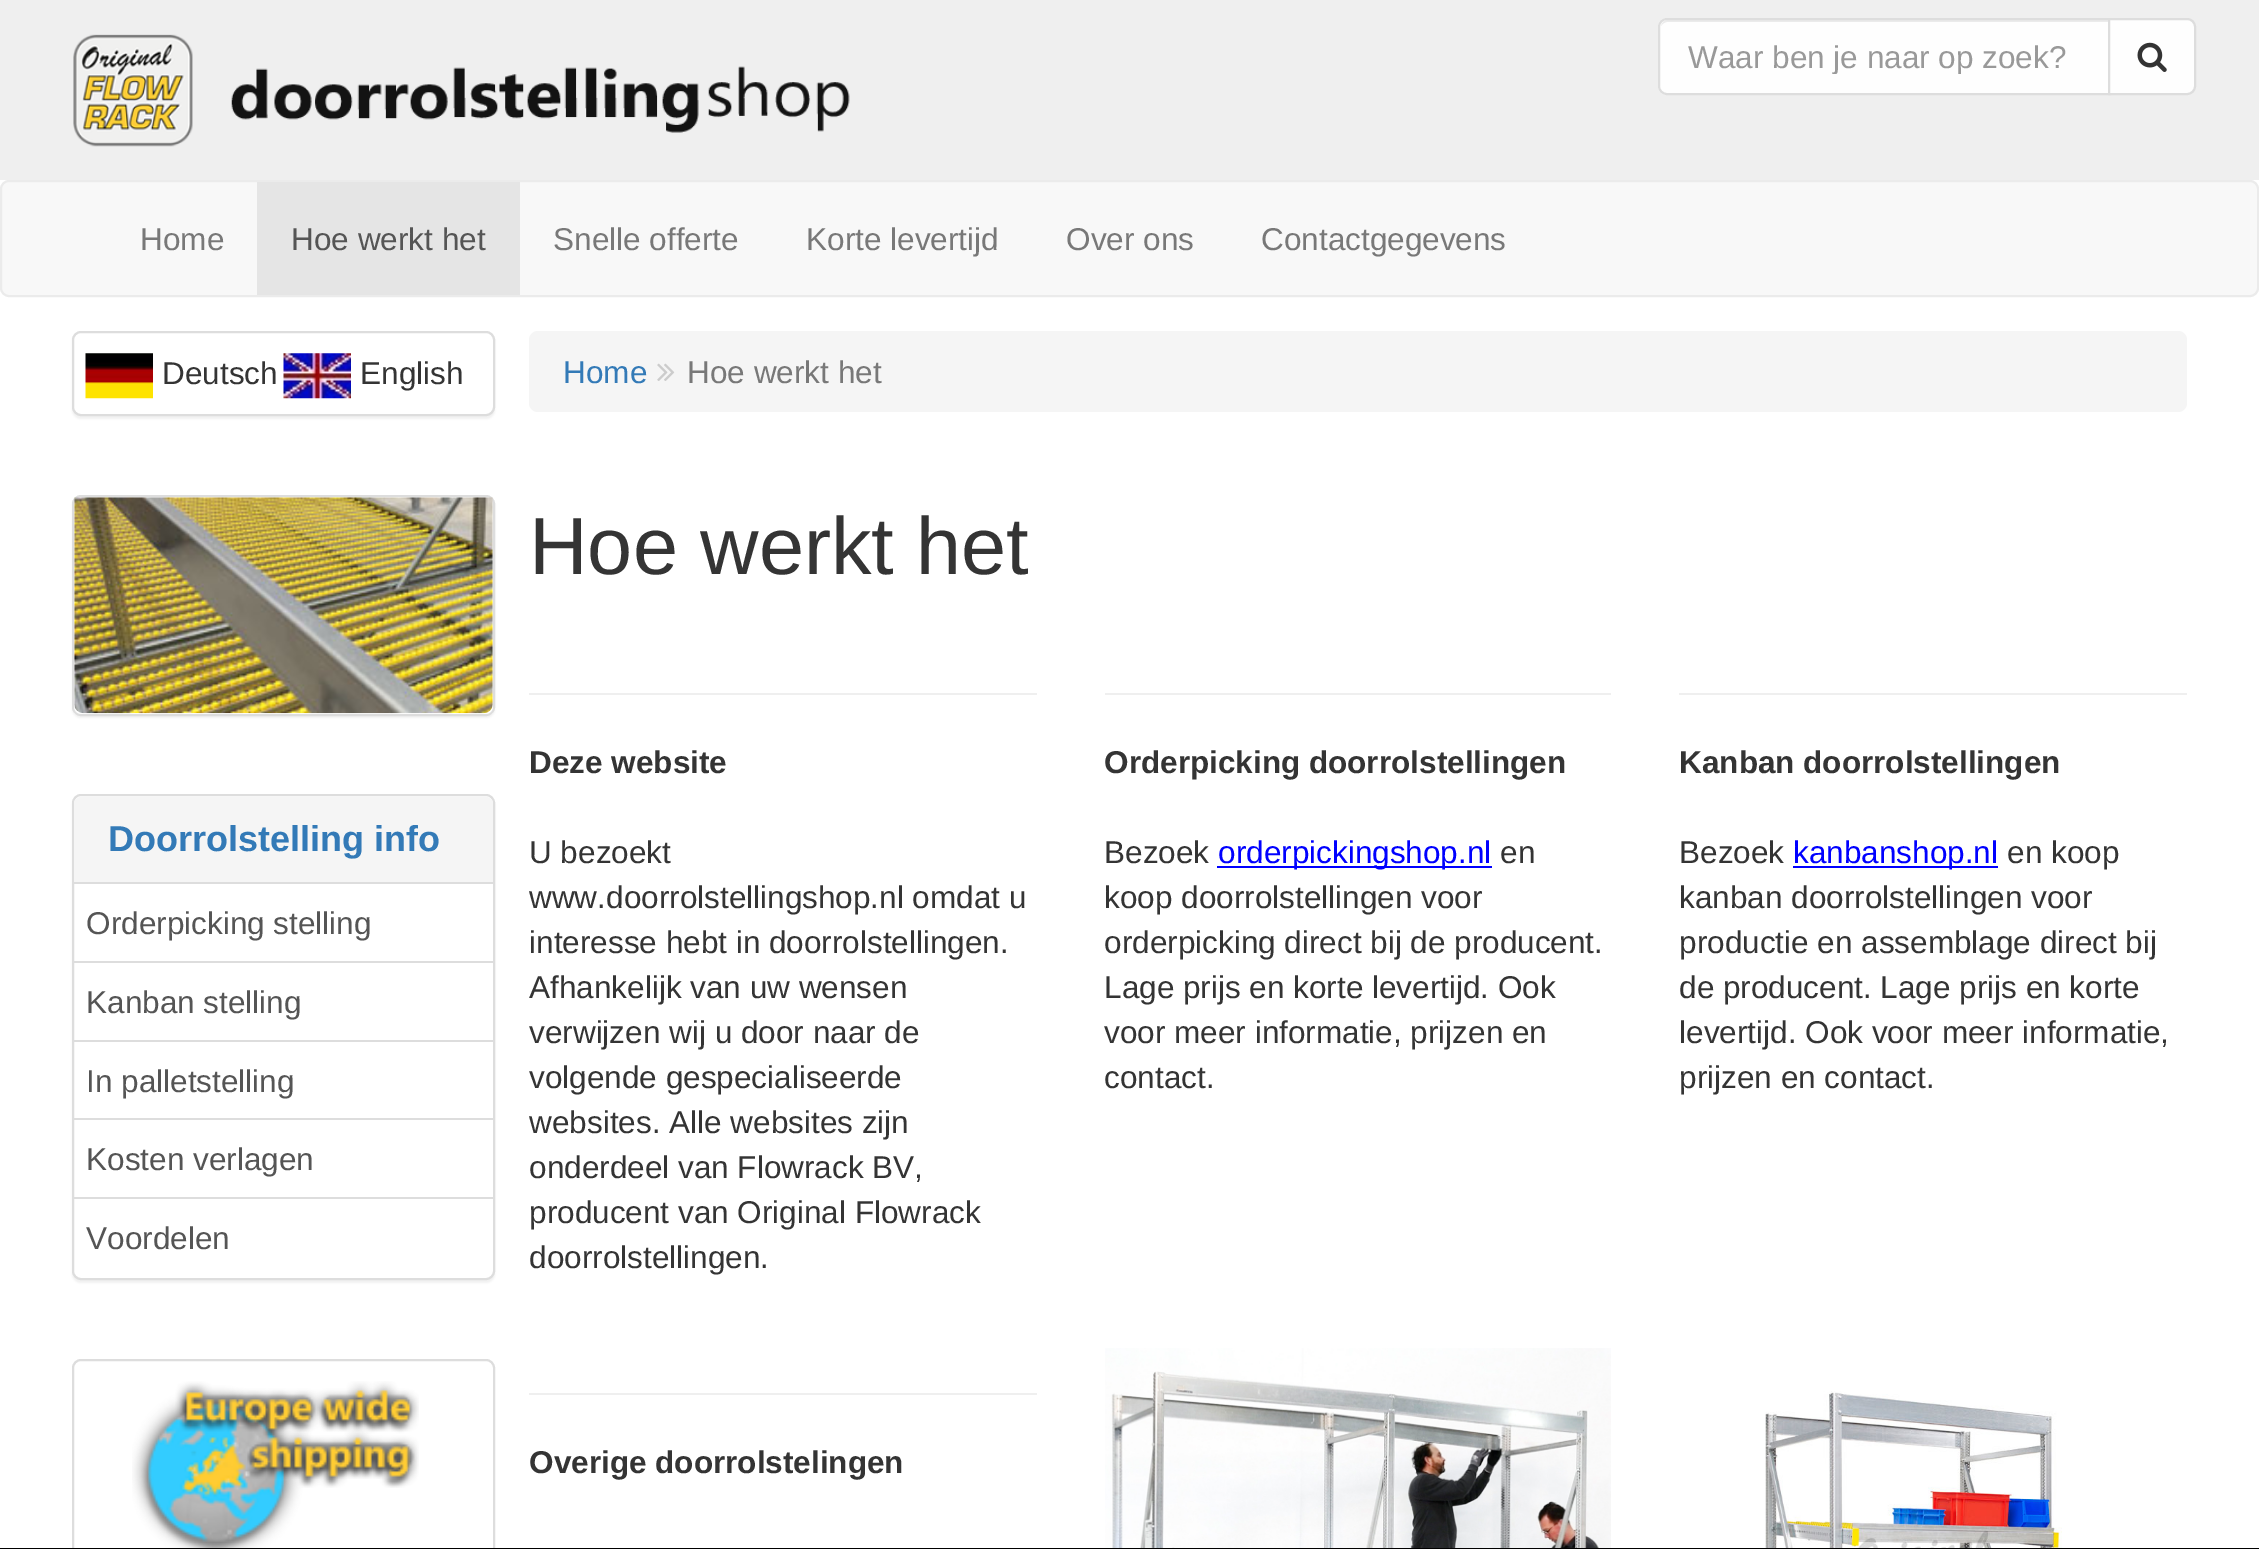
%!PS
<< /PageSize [2259 1549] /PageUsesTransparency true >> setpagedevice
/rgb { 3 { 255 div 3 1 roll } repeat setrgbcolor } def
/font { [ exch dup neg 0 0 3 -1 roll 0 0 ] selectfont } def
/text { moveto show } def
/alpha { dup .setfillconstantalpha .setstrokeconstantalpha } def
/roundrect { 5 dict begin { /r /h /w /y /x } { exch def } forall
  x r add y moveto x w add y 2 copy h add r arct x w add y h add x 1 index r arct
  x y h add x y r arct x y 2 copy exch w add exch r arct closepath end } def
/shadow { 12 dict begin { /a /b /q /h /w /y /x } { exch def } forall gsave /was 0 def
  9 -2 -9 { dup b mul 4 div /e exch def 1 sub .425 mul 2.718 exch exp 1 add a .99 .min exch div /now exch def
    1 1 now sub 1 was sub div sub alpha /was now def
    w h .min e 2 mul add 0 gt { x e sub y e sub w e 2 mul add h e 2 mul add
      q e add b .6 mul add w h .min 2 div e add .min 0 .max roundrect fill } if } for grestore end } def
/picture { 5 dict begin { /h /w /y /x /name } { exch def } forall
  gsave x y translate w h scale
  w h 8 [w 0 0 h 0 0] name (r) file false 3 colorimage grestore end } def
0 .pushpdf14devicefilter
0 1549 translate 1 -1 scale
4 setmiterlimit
255 255 255 rgb
0 0 2259 1549 rectfill
239 239 239 rgb
0 0 2259 180 rectfill
(img_01.rgb) 73 34 777 113 picture
254 254 254 rgb
1667 18 moveto 444 0 rlineto 0 77 rlineto -444 0 rlineto -5 0 -9 -4 -9 -9 rcurveto 0 -59 rlineto 0 -5 4 -9 9 -9 rcurveto closepath fill
235 235 235 rgb
1667 22 moveto 441 0 rlineto 0 -2 rlineto -440 0 rlineto -4 0 -6 3 -7 6 rcurveto 1 -2 4 -4 6 -4 rcurveto closepath fill
221 221 221 rgb
2 setlinewidth
1667 19 moveto 443 0 rlineto 0 75 rlineto -443 0 rlineto -4.5 0 -8 -3.5 -8 -8 rcurveto 0 -59 rlineto 0 -4.5 3.5 -8 8 -8 rcurveto closepath stroke
254 254 254 rgb
2109 19 moveto 78 0 rlineto 4.5 0 8 3.5 8 8 rcurveto 0 59 rlineto 0 4.5 -3.5 8 -8 8 rcurveto -78 0 rlineto closepath gsave fill grestore
221 221 221 rgb
stroke
(img_02.rgb) 2137 42 30 30 picture
248 248 248 rgb
1 181 2257 115 8 roundrect gsave fill grestore
235 235 235 rgb
stroke
229 229 229 rgb
257 182 263 113 rectfill
gsave
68 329 moveto 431 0 rlineto 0 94 rlineto -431 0 rlineto closepath 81 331 moveto 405 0 rlineto 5 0 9 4 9 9 rcurveto 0 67 rlineto 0 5 -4 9 -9 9 rcurveto -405 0 rlineto -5 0 -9 -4 -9 -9 rcurveto 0 -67 rlineto 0 -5 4 -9 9 -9 rcurveto closepath eoclip newpath
0 0 0 rgb
72 333 423 86 9 1 0.05 shadow
grestore
221 221 221 rgb
73 332 421 83 8 roundrect stroke
(img_03.rgb) 85 353 68 46 picture
(img_04.rgb) 283 353 68 46 picture
0 0 0 rgb
72 497 423 221 9 1 0.05 shadow
254 254 254 rgb
73 496 421 219 8 roundrect gsave fill grestore
221 221 221 rgb
stroke
(img_05.rgb) 74 497 419 217 picture
gsave
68 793 moveto 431 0 rlineto 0 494 rlineto -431 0 rlineto closepath 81 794 moveto 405 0 rlineto 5 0 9 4 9 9 rcurveto 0 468 rlineto 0 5 -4 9 -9 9 rcurveto -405 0 rlineto -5 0 -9 -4 -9 -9 rcurveto 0 -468 rlineto 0 -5 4 -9 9 -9 rcurveto closepath eoclip newpath
0 0 0 rgb
72 797 423 486 9 1 0.05 shadow
grestore
73 795 421 484 8 roundrect stroke
245 245 245 rgb
81 797 moveto 405 0 rlineto 4 0 7 3 7 7 rcurveto 0 80 rlineto -419 0 rlineto 0 -80 rlineto 0 -4 3 -7 7 -7 rcurveto closepath fill
221 221 221 rgb
74 882 419 2 rectfill
74 961 419 2 rectfill
74 1040 419 2 rectfill
74 1118 419 2 rectfill
74 1197 419 2 rectfill
73 1360 421 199 8 roundrect stroke
(img_06.rgb) 132 1381 287 167 picture
245 245 245 rgb
529 331 1658 81 9 roundrect fill
(img_07.rgb) 657 363 18 18 picture
239 239 239 rgb
529 693 508 2 rectfill
1105 693 506 2 rectfill
0 0 255 rgb
1217 866 275 2 rectfill
239 239 239 rgb
1679 693 508 2 rectfill
0 0 255 rgb
1793 866 205 2 rectfill
239 239 239 rgb
529 1393 508 2 rectfill
(img_08.rgb) 1105 1348 506 200 picture
(img_09.rgb) 1765 1391 297 157 picture
0 0 0 rgb
0 1548 2259 1 rectfill
gsave
1688 38 398 36 rectclip
/LiberationSans-Regular 31.5 font
153 153 153 rgb
(Waar ben je naar op zoek?) 1688 68 text
grestore
/LiberationSans-Regular 31.5 font
120 120 120 rgb
(Home) 140 250 text
85 85 85 rgb
(Hoe werkt het) 291 250 text
120 120 120 rgb
(Snelle offerte) 553 250 text
(Korte levertijd) 806 250 text
(Over ons) 1066 250 text
(Contactgegevens) 1261 250 text
52 52 52 rgb
(Deutsch) 162 384 text
(English) 360 384 text
/LiberationSans-Bold 36 font
51 122 183 rgb
(Doorrolstelling info) 108 851 text
/LiberationSans-Regular 31.5 font
85 85 85 rgb
(Orderpicking stelling) 86 934 text
(Kanban stelling) 86 1013 text
(In palletstelling) 86 1092 text
(Kosten verlagen) 86 1170 text
(Voordelen) 86 1249 text
51 122 183 rgb
(Home) 563 383 text
120 120 120 rgb
(Hoe werkt het) 687 383 text
/LiberationSans-Regular 81 font
52 52 52 rgb
(Hoe werkt het) 529 574 text
/LiberationSans-Bold 31.5 font
(Deze website) 529 773 text
/LiberationSans-Regular 31.5 font
(U bezoekt) 529 863 text
(www.doorrolstellingshop.nl omdat u) 529 908 text
(interesse hebt in doorrolstellingen.) 529 953 text
(Afhankelijk van uw wensen) 529 998 text
(verwijzen wij u door naar de) 529 1043 text
(volgende gespecialiseerde) 529 1088 text
(websites. Alle websites zijn) 529 1133 text
(onderdeel van Flowrack BV,) 529 1178 text
(producent van Original Flowrack) 529 1223 text
(doorrolstellingen.) 529 1268 text
/LiberationSans-Bold 31.5 font
(Orderpicking doorrolstellingen) 1104 773 text
/LiberationSans-Regular 31.5 font
(Bezoek) 1104 863 text
0 0 255 rgb
(orderpickingshop.nl) 1218 863 text
52 52 52 rgb
(en) 1500 863 text
(koop doorrolstellingen voor) 1104 908 text
(orderpicking direct bij de producent.) 1104 953 text
(Lage prijs en korte levertijd. Ook) 1104 998 text
(voor meer informatie, prijzen en) 1104 1043 text
(contact.) 1104 1088 text
/LiberationSans-Bold 31.5 font
(Kanban doorrolstellingen) 1679 773 text
/LiberationSans-Regular 31.5 font
(Bezoek) 1679 863 text
0 0 255 rgb
(kanbanshop.nl) 1793 863 text
52 52 52 rgb
(en koop) 2007 863 text
(kanban doorrolstellingen voor) 1679 908 text
(productie en assemblage direct bij) 1679 953 text
(de producent. Lage prijs en korte) 1679 998 text
(levertijd. Ook voor meer informatie,) 1679 1043 text
(prijzen en contact.) 1679 1088 text
/LiberationSans-Bold 31.5 font
(Overige doorrolstelingen) 529 1473 text
.poppdf14devicefilter showpage
